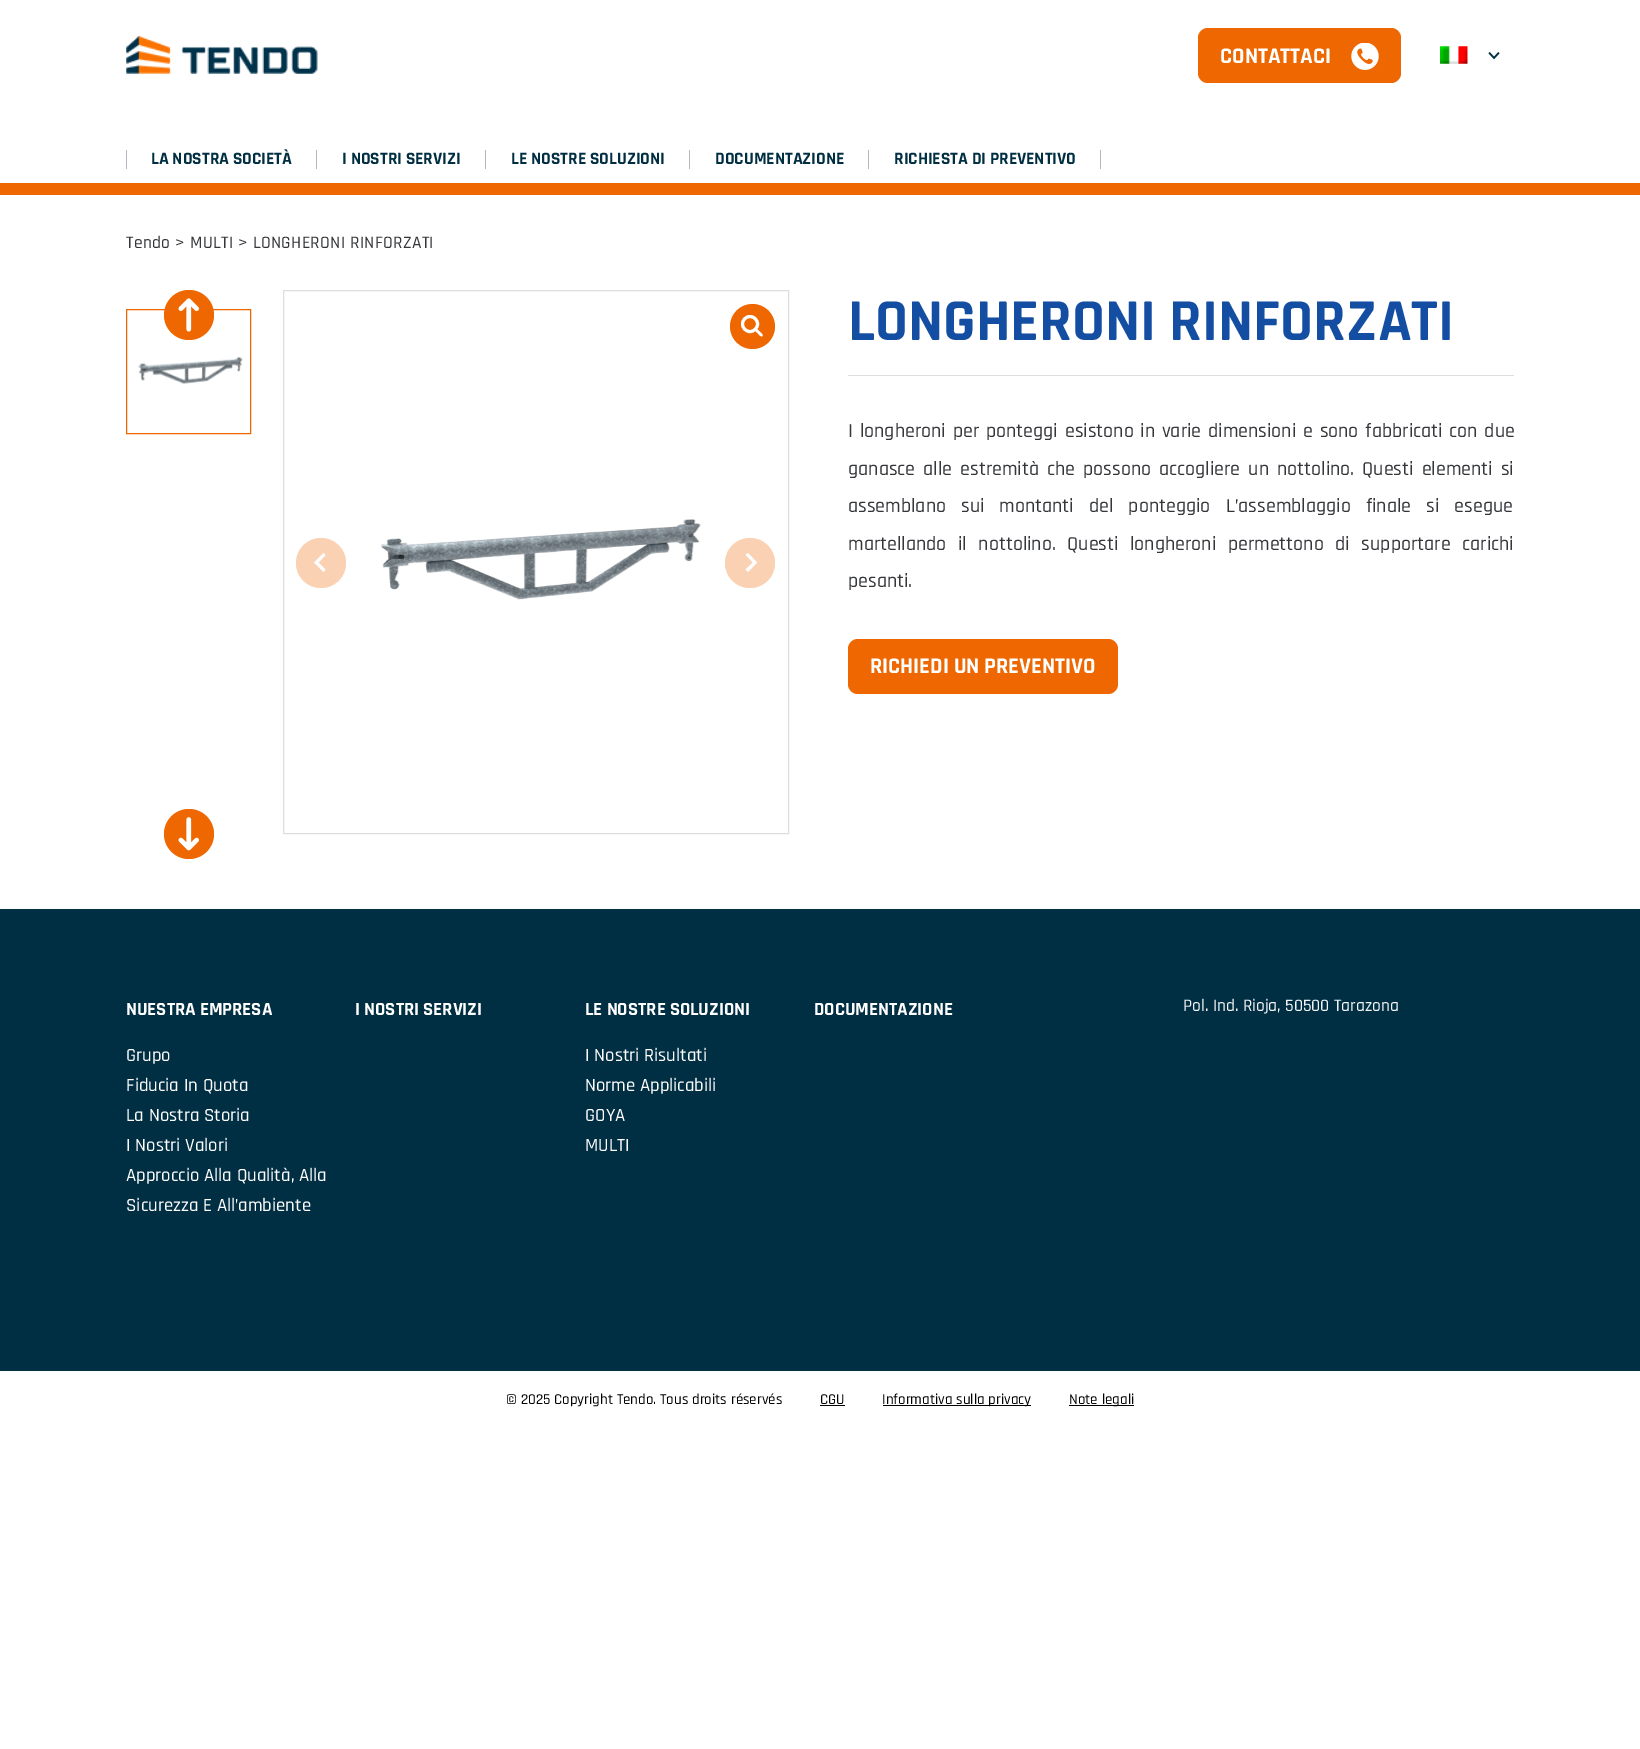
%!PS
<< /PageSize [1640 1749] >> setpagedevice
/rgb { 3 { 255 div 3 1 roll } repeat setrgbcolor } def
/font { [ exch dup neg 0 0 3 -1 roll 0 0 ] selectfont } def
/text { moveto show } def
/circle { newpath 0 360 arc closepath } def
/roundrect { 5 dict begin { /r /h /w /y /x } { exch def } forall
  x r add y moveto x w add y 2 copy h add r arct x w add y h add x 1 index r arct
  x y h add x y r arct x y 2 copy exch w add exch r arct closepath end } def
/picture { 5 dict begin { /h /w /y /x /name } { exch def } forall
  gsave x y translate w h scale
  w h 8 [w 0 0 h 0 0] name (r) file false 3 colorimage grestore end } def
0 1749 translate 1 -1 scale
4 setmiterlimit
255 255 255 rgb
0 0 1640 1749 rectfill
238 103 0 rgb
0 183 1640 12 rectfill
(img_01.rgb) 126 36 192 38 picture
1198 28 203 55 10 roundrect fill
(img_02.rgb) 1351 43 28 27 picture
(img_03.rgb) 1440 46 28 18 picture
(img_04.rgb) 1488 52 12 8 picture
179 184 192 rgb
126 150 1 19 rectfill
316 150 1 19 rectfill
485 150 1 19 rectfill
689 150 1 19 rectfill
868 150 1 19 rectfill
1100 150 1 19 rectfill
(img_07.rgb) 138 356 105 28 picture
238 103 0 rgb
126.5 309.5 124 124 rectstroke
189 315 25 circle fill
(img_05.rgb) 178 298 21 34 picture
189 834 25 circle fill
(img_06.rgb) 178 817 21 34 picture
222 222 222 rgb
283.5 290.5 505 543 rectstroke
238 103 0 rgb
752.5 326.5 22.5 circle fill
255 255 255 rgb
3 setlinewidth
750 324 7.5 circle stroke
755 329 moveto 1.5 -1.5 4 2 4.5 2.5 rcurveto 1 1 4 3 3 4.5 rcurveto -1.5 1.5 -4 -2 -4.5 -2.5 rcurveto -1 -1 -4 -3 -3 -4.5 rcurveto closepath fill
(img_08.rgb) 381 519 320 81 picture
250 209 179 rgb
321 563 25 circle fill
255 255 255 rgb
323.5 553 moveto 2 2 rlineto -7 7.5 rlineto 7 7 rlineto -2 2.5 rlineto -9.5 -9.5 rlineto closepath fill
250 209 179 rgb
750 563 25 circle fill
255 255 255 rgb
748 553 moveto -2.5 2 rlineto 7.5 7.5 rlineto -7.5 7 rlineto 2.5 2.5 rlineto 9 -9.5 rlineto closepath fill
222 222 222 rgb
848 375 666 1 rectfill
238 103 0 rgb
848 639 270 55 10 roundrect fill
0 46 66 rgb
0 909 1640 462 rectfill
0 0 0 rgb
820 1405 25 1 rectfill
883 1405 148 1 rectfill
1069 1405 65 1 rectfill
/Rajdhani-Bold 22.5 font
255 255 255 rgb
(CONTATTACI) 1220 63 text
/Rajdhani-Bold 17.5 font
0 46 66 rgb
(LA NOSTRA SOCIETÀ) 151 164 text
(I NOSTRI SERVIZI) 342 164 text
(LE NOSTRE SOLUZIONI) 511 164 text
(DOCUMENTAZIONE) 715 164 text
(RICHIESTA DI PREVENTIVO) 894 164 text
/Rajdhani-Medium 17.5 font
53 54 58 rgb
126 248 moveto 0.35 0 (Tendo > MULTI > LONGHERONI RINFORZATI) ashow
/Rajdhani-Bold 60 font
20 78 162 rgb
(LONGHERONI RINFORZATI) 848 340 text
/Rajdhani-Medium 20 font
53 54 58 rgb
848 437 moveto 1.75 0 32 (I longheroni per ponteggi esistono in varie dimensioni e sono fabbricati con due) widthshow
848 475 moveto 3 0 32 (ganasce alle estremità che possono accogliere un nottolino. Questi elementi si) widthshow
848 512 moveto 10 0 32 (assemblano sui montanti del ponteggio L’assemblaggio finale si esegue) widthshow
848 550 moveto 6.5 0 32 (martellando il nottolino. Questi longheroni permettono di supportare carichi) widthshow
(pesanti.) 848 587 text
/Rajdhani-Bold 22.5 font
255 255 255 rgb
(RICHIEDI UN PREVENTIVO) 870 673 text
/Rajdhani-Bold 18.75 font
(NUESTRA EMPRESA) 126 1015 text
/Rajdhani-Medium 18.75 font
(Grupo) 126 1061 text
(Fiducia In Quota) 126 1091 text
(La Nostra Storia) 126 1121 text
(I Nostri Valori) 126 1151 text
(Approccio Alla Qualità, Alla) 126 1181 text
(Sicurezza E All’ambiente) 126 1211 text
/Rajdhani-Bold 18.75 font
(I NOSTRI SERVIZI) 355 1015 text
(LE NOSTRE SOLUZIONI) 585 1015 text
/Rajdhani-Medium 18.75 font
(I Nostri Risultati) 585 1061 text
(Norme Applicabili) 585 1091 text
(GOYA) 585 1121 text
(MULTI) 585 1151 text
/Rajdhani-Bold 18.75 font
(DOCUMENTAZIONE) 814 1015 text
/Rajdhani-Medium 17.5 font
243 244 245 rgb
(Pol. Ind. Rioja, 50500 Tarazona) 1183 1011 text
/Rajdhani-Medium 15 font
0 0 0 rgb
(© 2025 Copyright Tendo. Tous droits réservés) 506 1404 text
(CGU) 820 1404 text
(Informativa sulla privacy) 882 1404 text
(Note legali) 1069 1404 text
showpage
